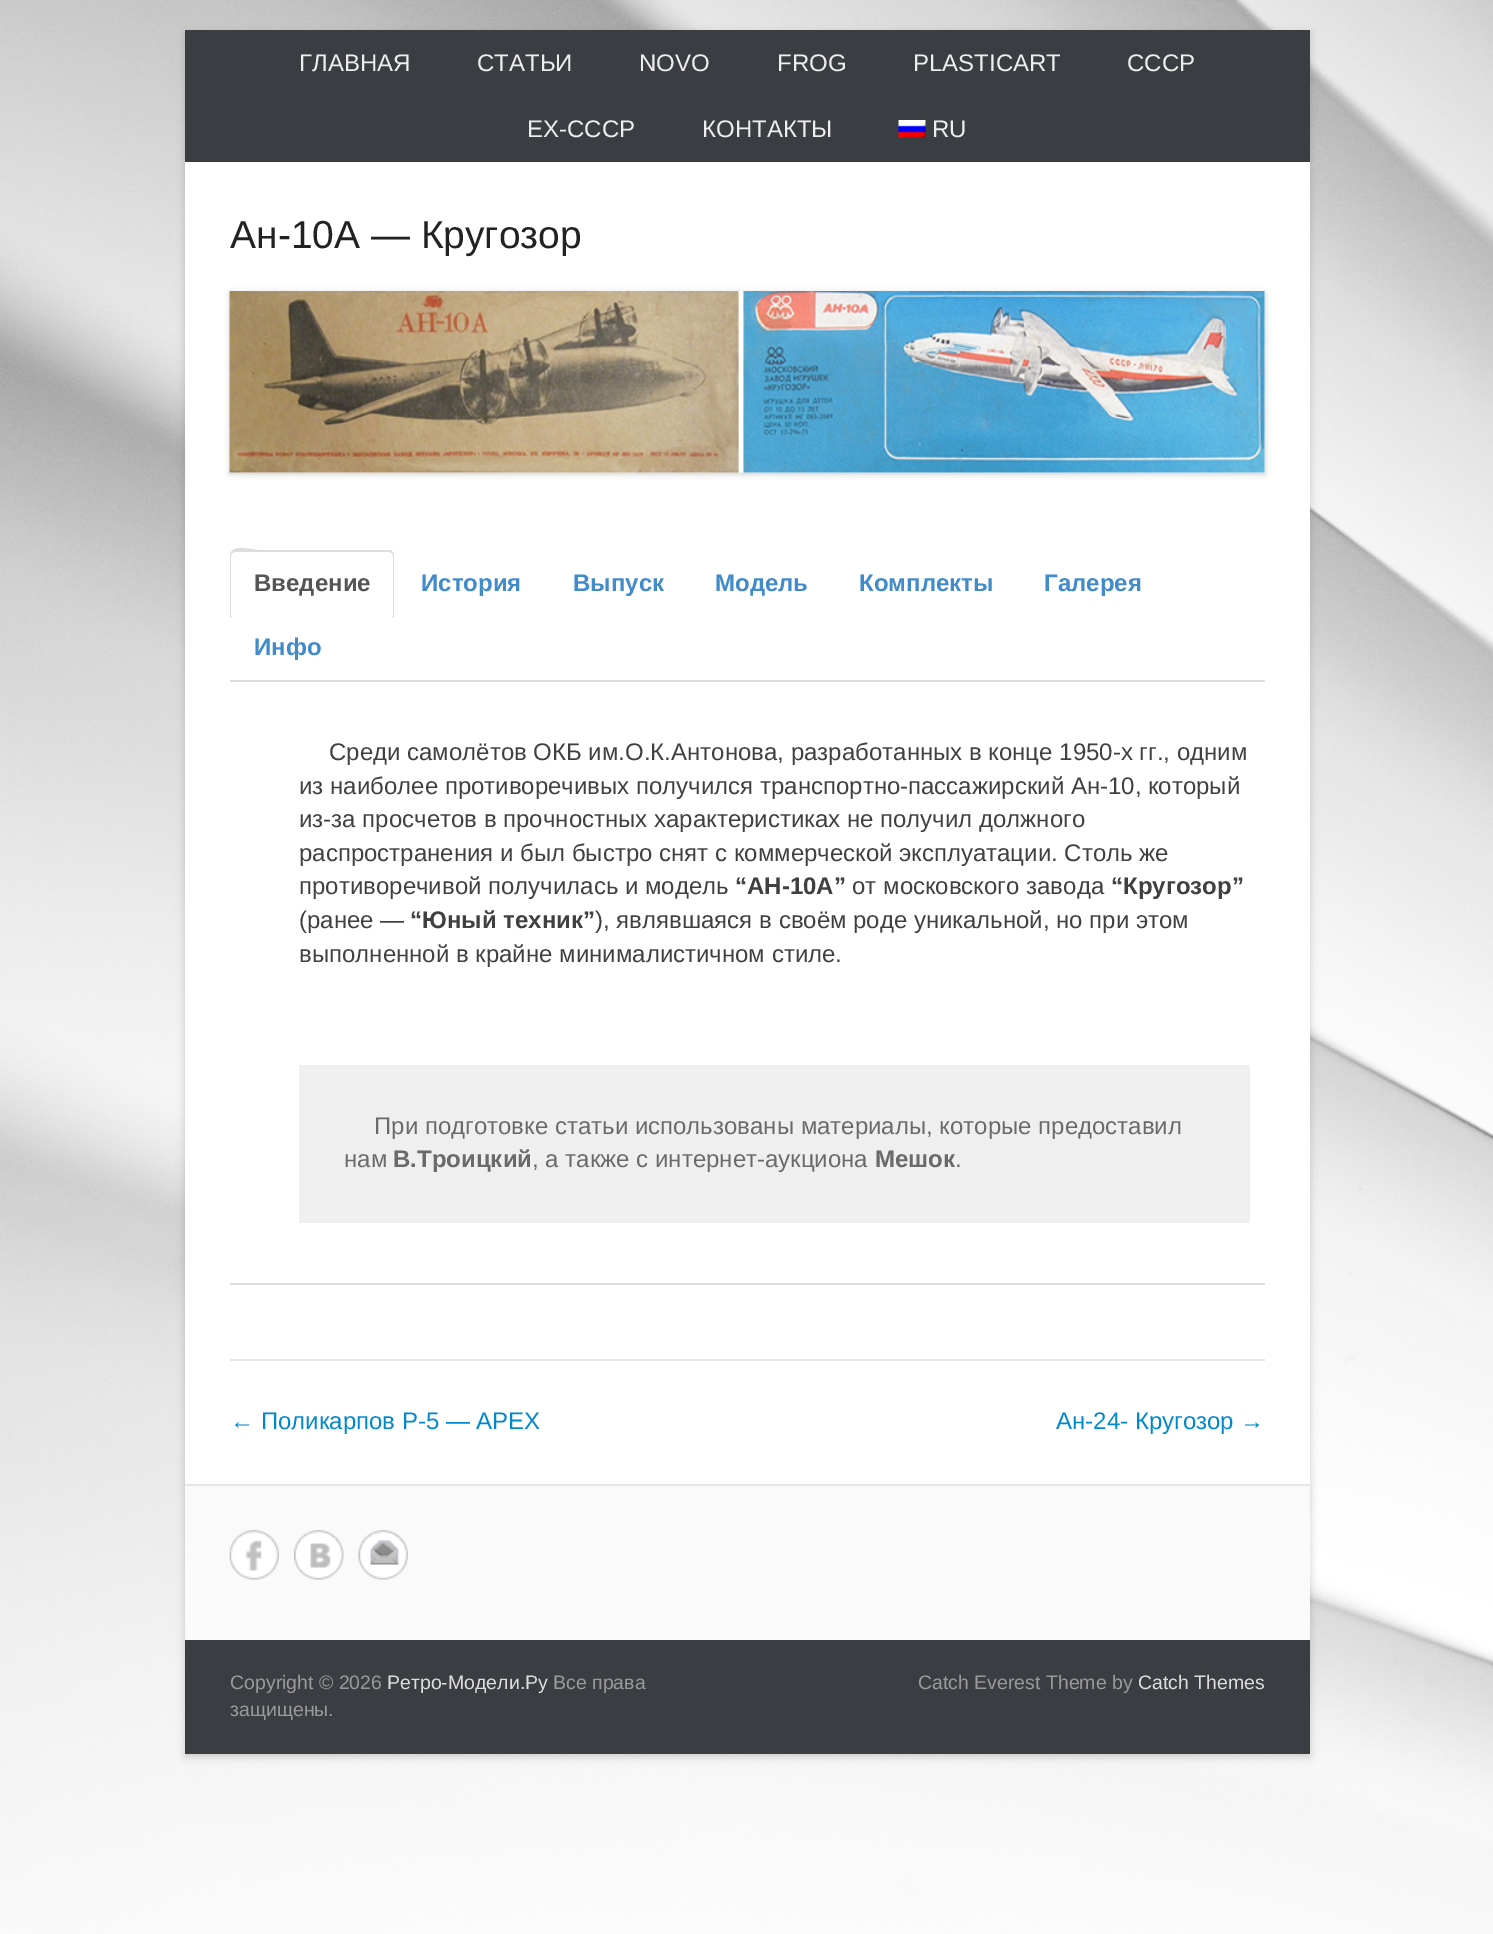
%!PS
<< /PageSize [1493 1934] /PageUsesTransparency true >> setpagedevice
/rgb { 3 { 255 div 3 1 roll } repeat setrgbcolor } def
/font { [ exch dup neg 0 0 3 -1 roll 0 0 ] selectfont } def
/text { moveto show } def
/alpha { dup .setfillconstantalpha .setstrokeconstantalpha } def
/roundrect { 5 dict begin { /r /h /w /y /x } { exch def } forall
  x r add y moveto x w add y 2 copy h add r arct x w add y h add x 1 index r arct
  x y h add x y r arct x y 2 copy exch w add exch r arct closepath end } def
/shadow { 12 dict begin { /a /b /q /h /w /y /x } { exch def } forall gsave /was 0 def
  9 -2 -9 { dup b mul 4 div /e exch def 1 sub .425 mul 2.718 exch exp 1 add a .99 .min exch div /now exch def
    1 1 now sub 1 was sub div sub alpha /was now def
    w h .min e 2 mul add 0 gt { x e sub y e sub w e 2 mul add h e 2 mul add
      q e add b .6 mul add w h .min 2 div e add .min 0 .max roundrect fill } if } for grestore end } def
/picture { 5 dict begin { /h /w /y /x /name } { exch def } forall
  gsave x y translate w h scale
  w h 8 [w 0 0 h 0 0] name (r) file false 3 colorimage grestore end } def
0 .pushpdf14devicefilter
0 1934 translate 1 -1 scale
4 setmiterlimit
255 255 255 rgb
0 0 1493 1934 rectfill
(img_01.rgb) 0 0 1493 1934 picture
100 100 100 rgb
185 33 1125 1724 0 4.5 0.3 shadow
255 255 255 rgb
185 162 1125 1322 rectfill
58 61 65 rgb
185 30 1125 132 rectfill
(img_02.rgb) 898 120 28 18 picture
230 230 230 rgb
230 1359 1035 2 rectfill
0 0 0 rgb
230 293 1035 181 0 3 0.2 shadow
(img_03.rgb) 229 291 1036 182 picture
221 221 221 rgb
230 680 1035 2 rectfill
236 552 moveto -2 0 -3 1 -4 1 rcurveto -1 -1 rlineto 6 -8 19 -2 29 -2 rcurveto 131 0 rlineto 2 2 rlineto -1 1 rlineto -1 0 -2 -1 -4 -1 rcurveto closepath fill
393 552 moveto 1 1 1 3 1 4 rcurveto 0 62 rlineto -2 -2 rlineto 1 0 rlineto 0 -60 rlineto -1 -3 rlineto closepath fill
230 618 moveto 0 -62 rlineto 0 -1 0 -3 1 -4 rcurveto 1 1 rlineto -1 3 rlineto 0 60 rlineto 1 0 rlineto closepath fill
230 1283 1035 2 rectfill
239 239 239 rgb
299 1065 951 158 rectfill
250 250 250 rgb
185 1486 1125 154 rectfill
230 230 230 rgb
185 1484 1125 2 rectfill
(img_04.rgb) 229 1530 50 50 picture
(img_05.rgb) 294 1530 50 50 picture
(img_06.rgb) 358 1530 50 50 picture
58 61 65 rgb
185 1640 1125 114 rectfill
/LiberationSans-Regular 24 font
238 238 238 rgb
(ГЛАВНАЯ) 299 71 text
(СТАТЬИ) 477 71 text
(NOVO) 639 71 text
(FROG) 777 71 text
(PLASTICART) 913 71 text
(СССР) 1127 71 text
(EX-СССР) 527 137 text
(КОНТАКТЫ) 702 137 text
(RU) 932 137 text
/LiberationSans-Regular 39 font
34 34 34 rgb
(Ан-10А — Кругозор) 230 248 text
/LiberationSans-Bold 24 font
85 85 85 rgb
(Введение) 254 591 text
66 139 202 rgb
(История) 421 591 text
(Выпуск) 573 591 text
(Модель) 715 591 text
(Комплекты) 859 591 text
(Галерея) 1044 591 text
(Инфо) 254 655 text
/LiberationSans-Regular 24 font
64 64 64 rgb
(Среди самолётов ОКБ им.О.К.Антонова, разработанных в конце 1950-х гг., одним) 329 760 text
(из наиболее противоречивых получился транспортно-пассажирский Ан-10, который) 299 794 text
(из-за просчетов в прочностных характеристиках не получил должного) 299 827 text
(распространения и был быстро снят с коммерческой эксплуатации. Столь же) 299 861 text
(противоречивой получилась и модель) 299 894 text
/LiberationSans-Bold 24 font
(“АН-10А”) 735 894 text
/LiberationSans-Regular 24 font
(от московского завода) 852 894 text
/LiberationSans-Bold 24 font
(“Кругозор”) 1111 894 text
/LiberationSans-Regular 24 font
(\(ранее —) 299 928 text
/LiberationSans-Bold 24 font
(“Юный техник”) 410 928 text
/LiberationSans-Regular 24 font
(\), являвшаяся в своём роде уникальной, но при этом) 595 928 text
(выполненной в крайне минималистичном стиле.) 299 962 text
106 106 106 rgb
(При подготовке статьи использованы материалы, которые предоставил) 374 1134 text
(нам) 344 1167 text
/LiberationSans-Bold 24 font
(В.Троицкий) 393 1167 text
/LiberationSans-Regular 24 font
(, а также с интернет-аукциона) 532 1167 text
/LiberationSans-Bold 24 font
(Мешок) 875 1167 text
/LiberationSans-Regular 24 font
(.) 955 1167 text
0 136 204 rgb
(← Поликарпов Р-5 — APEX) 230 1429 text
(Ан-24- Кругозор →) 1056 1429 text
/LiberationSans-Regular 19.5 font
153 153 153 rgb
(Copyright © 2026) 230 1689 text
221 221 221 rgb
(Ретро-Модели.Ру) 387 1689 text
153 153 153 rgb
(Все права) 553 1689 text
(защищены.) 230 1716 text
(Catch Everest Theme by) 918 1689 text
221 221 221 rgb
(Catch Themes) 1138 1689 text
.poppdf14devicefilter showpage
